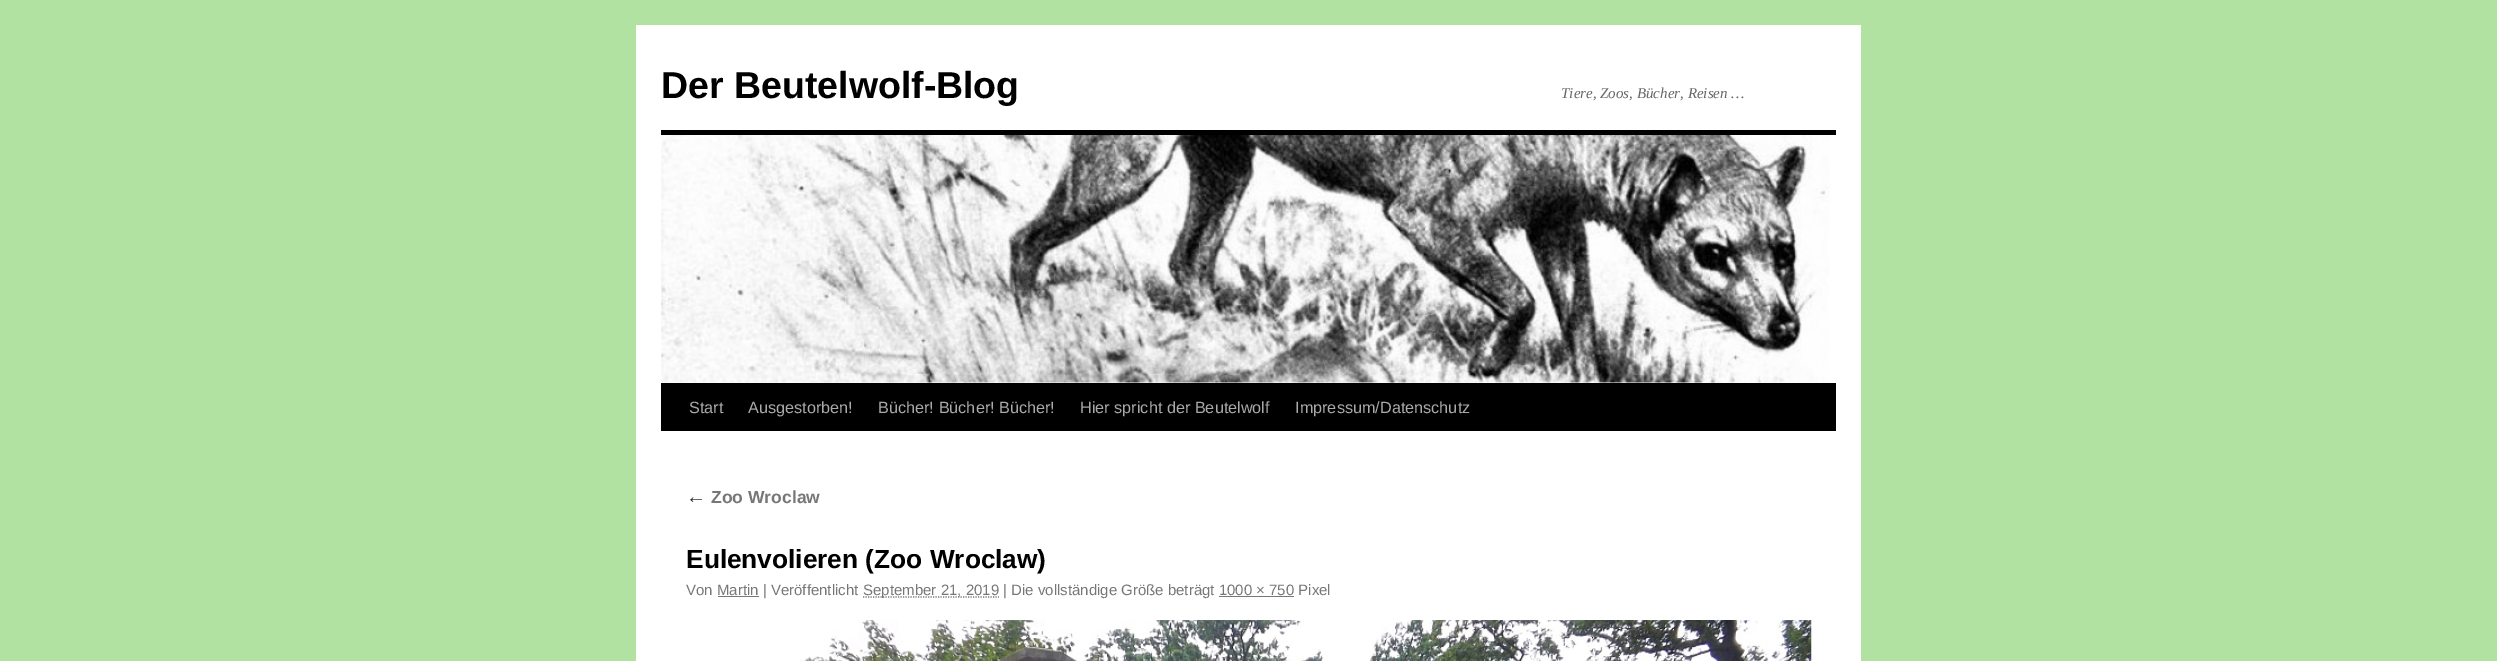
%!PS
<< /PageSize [2497 661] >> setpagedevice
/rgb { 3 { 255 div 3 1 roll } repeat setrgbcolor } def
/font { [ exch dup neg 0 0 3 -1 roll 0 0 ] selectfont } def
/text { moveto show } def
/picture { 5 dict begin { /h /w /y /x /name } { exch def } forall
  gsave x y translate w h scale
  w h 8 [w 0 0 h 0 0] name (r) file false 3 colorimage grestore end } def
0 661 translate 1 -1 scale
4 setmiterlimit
177 226 161 rgb
0 0 2497 661 rectfill
255 255 255 rgb
636 25 1225 636 rectfill
0 0 0 rgb
661 130 1175 5 rectfill
661 383 1175 48 rectfill
(img_01.rgb) 661 135 1169 248 picture
119 119 119 rgb
1.2 setlinewidth
[1.25 1.25] 0 setdash
863 597 moveto 136 0 rlineto stroke
718 596 41 1 rectfill
1219 596 75 1 rectfill
(img_02.rgb) 800 620 1012 41 picture
/LiberationSans-Bold 37.5 font
0 0 0 rgb
(Der Beutelwolf-Blog) 661 98 text
/LiberationSerif-Italic 15 font
102 102 102 rgb
(Tiere, Zoos, Bücher, Reisen …) 1561 98 text
/LiberationSans-Regular 16.25 font
170 170 170 rgb
(Start) 689 413 text
(Ausgestorben!) 748 413 text
(Bücher! Bücher! Bücher!) 878 413 text
(Hier spricht der Beutelwolf) 1080 413 text
(Impressum/Datenschutz) 1295 413 text
/LiberationSerif-Italic 20 font
51 51 51 rgb
(←) 686 503 text
/LiberationSans-Bold 17.5 font
119 119 119 rgb
(Zoo Wroclaw) 711 503 text
/LiberationSans-Bold 26.25 font
0 0 0 rgb
(Eulenvolieren \(Zoo Wroclaw\)) 686 568 text
/LiberationSans-Regular 15 font
119 119 119 rgb
(Von Martin | Veröffentlicht) 686 595 text
(September 21, 2019 | Die vollständige Größe beträgt 1000 × 750 Pixel) 863 595 text
showpage
